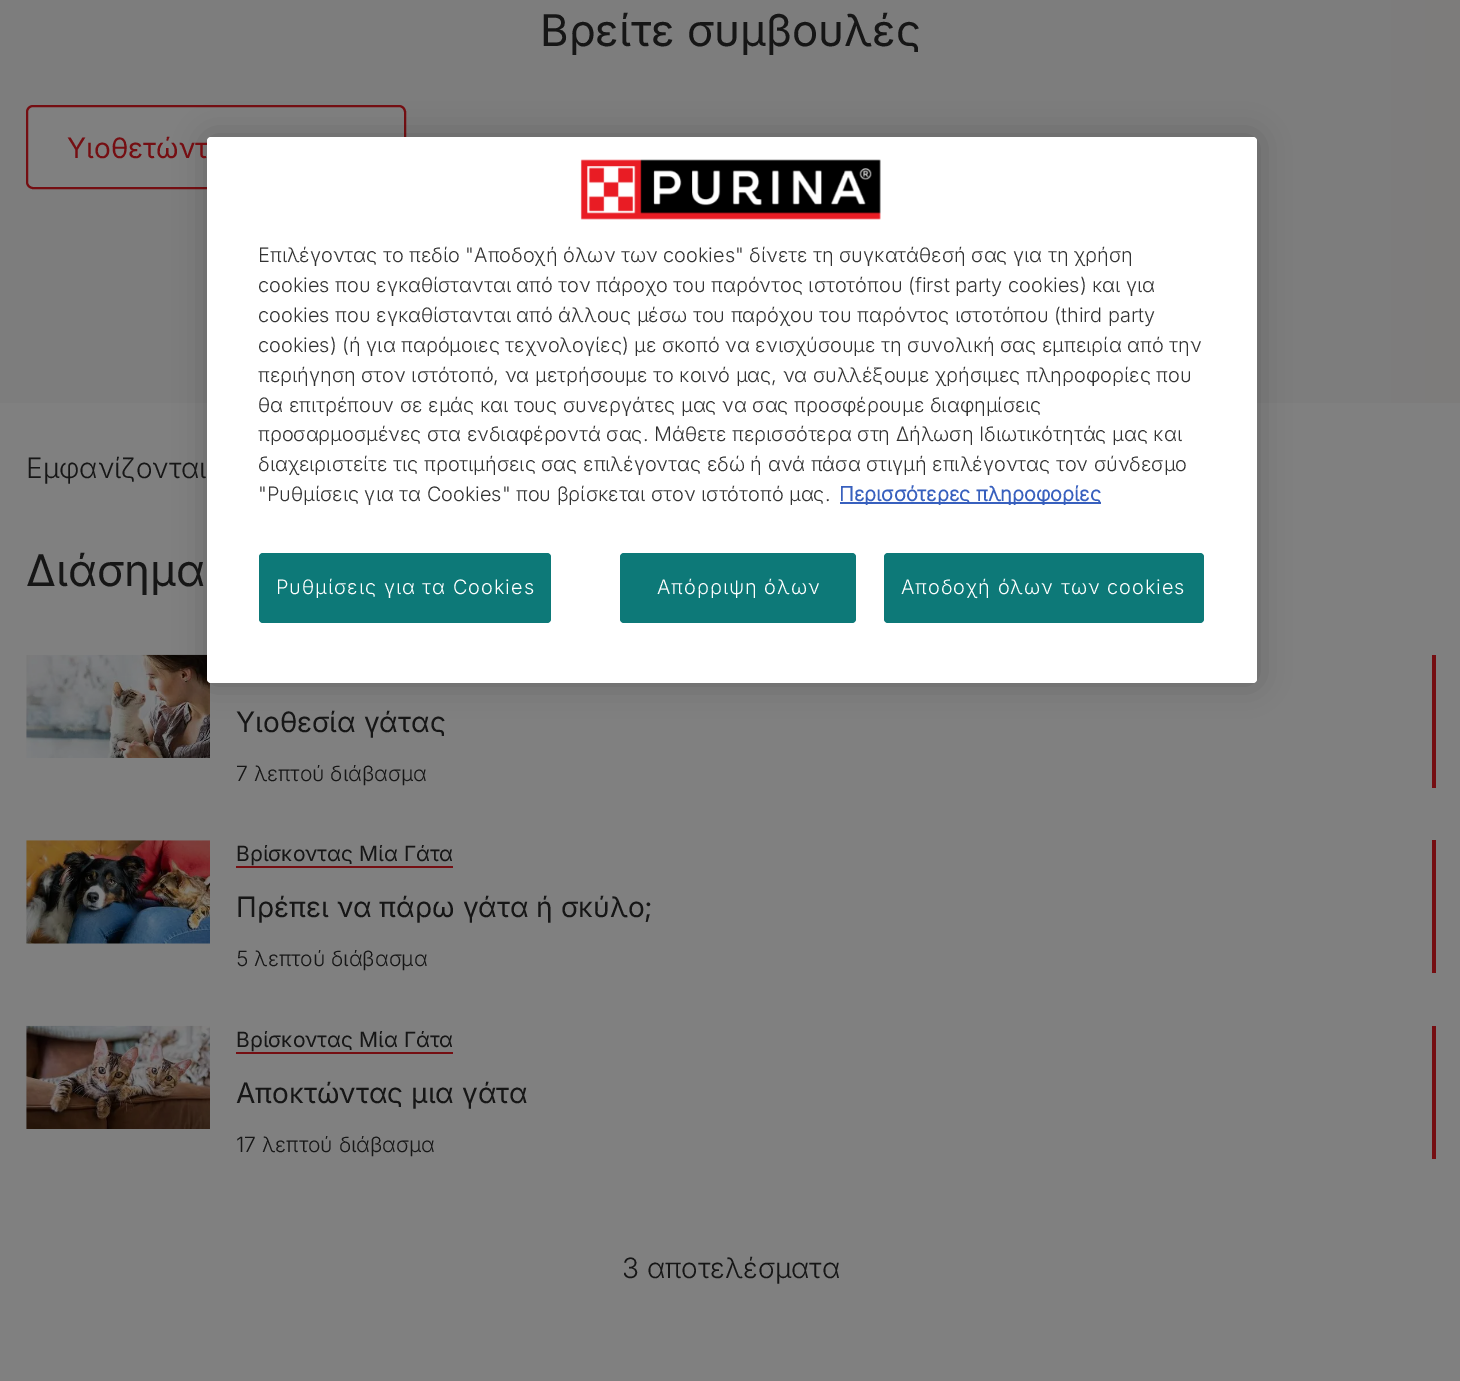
%!PS
<< /PageSize [1460 1381] /PageUsesTransparency true >> setpagedevice
/rgb { 3 { 255 div 3 1 roll } repeat setrgbcolor } def
/font { [ exch dup neg 0 0 3 -1 roll 0 0 ] selectfont } def
/text { moveto show } def
/alpha { dup .setfillconstantalpha .setstrokeconstantalpha } def
/roundrect { 5 dict begin { /r /h /w /y /x } { exch def } forall
  x r add y moveto x w add y 2 copy h add r arct x w add y h add x 1 index r arct
  x y h add x y r arct x y 2 copy exch w add exch r arct closepath end } def
/shadow { 12 dict begin { /a /b /q /h /w /y /x } { exch def } forall gsave /was 0 def
  9 -2 -9 { dup b mul 4 div /e exch def 1 sub .425 mul 2.718 exch exp 1 add a .99 .min exch div /now exch def
    1 1 now sub 1 was sub div sub alpha /was now def
    w h .min e 2 mul add 0 gt { x e sub y e sub w e 2 mul add h e 2 mul add
      q e add b .6 mul add w h .min 2 div e add .min 0 .max roundrect fill } if } for grestore end } def
/picture { 5 dict begin { /h /w /y /x /name } { exch def } forall
  gsave x y translate w h scale
  w h 8 [w 0 0 h 0 0] name (r) file false 3 colorimage grestore end } def
0 .pushpdf14devicefilter
0 1381 translate 1 -1 scale
4 setmiterlimit
128 128 128 rgb
0 0 1460 1381 rectfill
125 125 125 rgb
0 0 1391 403 rectfill
gsave 1391 0 moveto 69 0 rlineto 0 403 rlineto -69 0 rlineto closepath clip newpath
<< /ShadingType 2 /ColorSpace /DeviceRGB /Coords [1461 175 1391 175] /Extend [true true] /Function << /FunctionType 2 /Domain [0 1] /C0 [0.49 0.486 0.482] /C1 [0.49 0.49 0.49] /N 1 >> >> shfill grestore
128 128 128 rgb
27 106 378 82 6 roundrect gsave fill grestore
117 14 18 rgb
2 setlinewidth
stroke
(img_01.rgb) 26 654 184 104 picture
1432 655 4 133 rectfill
(img_02.rgb) 26 840 184 104 picture
1432 840 4 133 rectfill
236 866 217 2 rectfill
(img_03.rgb) 26 1025 184 104 picture
1432 1026 4 133 rectfill
236 1052 217 2 rectfill
0 0 0 rgb
207 137 1050 546 4 16 0.2 shadow
/Inter-Regular 43.75 font
22 22 22 rgb
(Βρείτε συμβουλές) 540 46 text
/Inter-Regular 28 font
117 14 18 rgb
(Υιοθετώντ) 67 158 text
/Inter-Light 28 font
22 22 22 rgb
(Εμφανίζονται) 26 478 text
/Inter-Regular 43.75 font
(Διάσημα) 26 586 text
/Inter-Regular 28 font
(Υιοθεσία γάτας) 236 732 text
/Inter-Light 21 font
(7 λεπτού διάβασμα) 236 781 text
/Inter-Regular 21 font
(Βρίσκοντας Μία Γάτα) 236 861 text
/Inter-Regular 28 font
(Πρέπει να πάρω γάτα ή σκύλο;) 236 917 text
/Inter-Light 21 font
(5 λεπτού διάβασμα) 236 966 text
/Inter-Regular 21 font
(Βρίσκοντας Μία Γάτα) 236 1047 text
/Inter-Regular 28 font
(Αποκτώντας μια γάτα) 236 1103 text
/Inter-Light 21 font
(17 λεπτού διάβασμα) 236 1152 text
/Inter-Light 28 font
(3 αποτελέσματα) 622 1278 text
255 255 255 rgb
207 137 1050 546 4 roundrect fill
(img_04.rgb) 580 159 301 61 picture
/Inter-Light 19.9 font
51 51 51 rgb
(Επιλέγοντας το πεδίο "Αποδοχή όλων των cookies" δίνετε τη συγκατάθεσή σας για τη χρήση) 258 262 text
(cookies που εγκαθίστανται από τον πάροχο του παρόντος ιστοτόπου \(first party cookies\) και για) 258 292 text
(cookies που εγκαθίστανται από άλλους μέσω του παρόχου του παρόντος ιστοτόπου \(third party) 258 322 text
(cookies\) \(ή για παρόμοιες τεχνολογίες\) με σκοπό να ενισχύσουμε τη συνολική σας εμπειρία από την) 258 352 text
(περιήγηση στον ιστότοπό, να μετρήσουμε το κοινό μας, να συλλέξουμε χρήσιμες πληροφορίες που) 258 382 text
(θα επιτρέπουν σε εμάς και τους συνεργάτες μας να σας προσφέρουμε διαφημίσεις) 258 412 text
(προσαρμοσμένες στα ενδιαφέροντά σας. Μάθετε περισσότερα στη Δήλωση Ιδιωτικότητάς μας και) 258 441 text
(διαχειριστείτε τις προτιμήσεις σας επιλέγοντας εδώ ή ανά πάσα στιγμή επιλέγοντας τον σύνδεσμο) 258 471 text
("Ρυθμίσεις για τα Cookies" που βρίσκεται στον ιστότοπό μας.) 258 501 text
56 96 190 rgb
840 502 261 2 rectfill
/Inter-Bold 19.9 font
(Περισσότερες πληροφορίες) 839 501 text
13 121 120 rgb
259 553 292 70 4 roundrect fill
/Inter-Light 19.9 font
255 255 255 rgb
276 594 moveto 1 0 (Ρυθμίσεις για τα Cookies) ashow
13 121 120 rgb
620 553 236 70 4 roundrect fill
255 255 255 rgb
657 594 moveto 1 0 (Απόρριψη όλων) ashow
13 121 120 rgb
884 553 320 70 4 roundrect fill
255 255 255 rgb
901 594 moveto 1 0 (Αποδοχή όλων των cookies) ashow
.poppdf14devicefilter showpage
